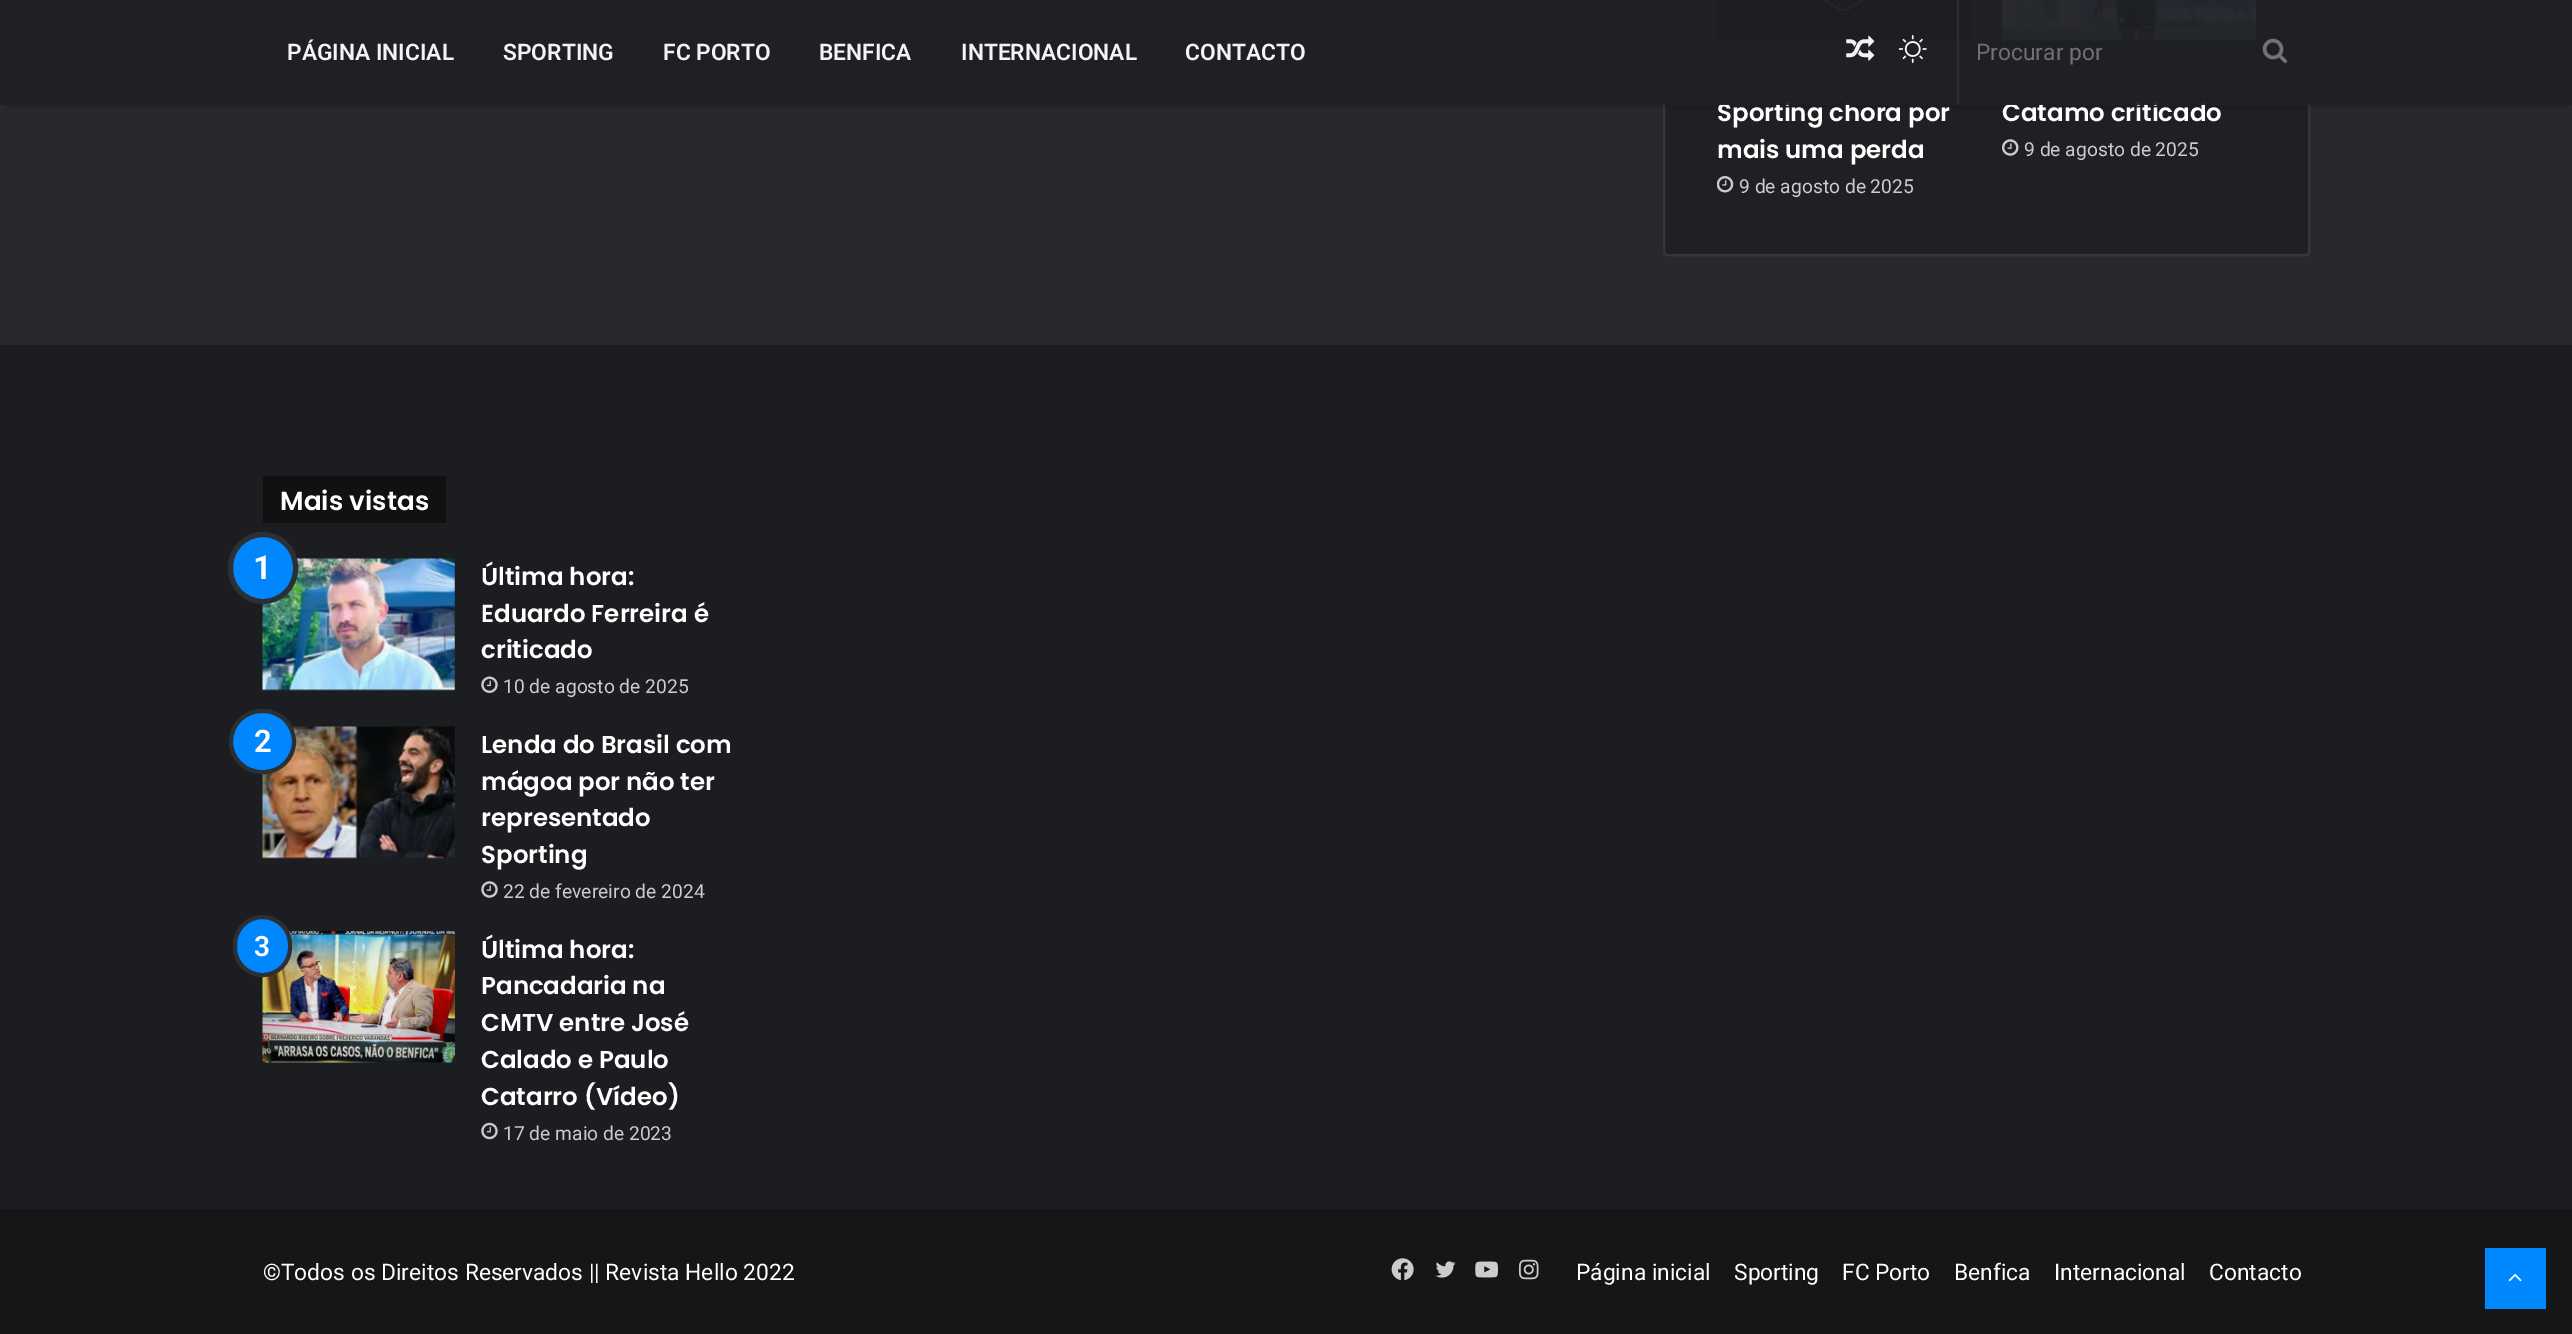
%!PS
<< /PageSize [2572 1334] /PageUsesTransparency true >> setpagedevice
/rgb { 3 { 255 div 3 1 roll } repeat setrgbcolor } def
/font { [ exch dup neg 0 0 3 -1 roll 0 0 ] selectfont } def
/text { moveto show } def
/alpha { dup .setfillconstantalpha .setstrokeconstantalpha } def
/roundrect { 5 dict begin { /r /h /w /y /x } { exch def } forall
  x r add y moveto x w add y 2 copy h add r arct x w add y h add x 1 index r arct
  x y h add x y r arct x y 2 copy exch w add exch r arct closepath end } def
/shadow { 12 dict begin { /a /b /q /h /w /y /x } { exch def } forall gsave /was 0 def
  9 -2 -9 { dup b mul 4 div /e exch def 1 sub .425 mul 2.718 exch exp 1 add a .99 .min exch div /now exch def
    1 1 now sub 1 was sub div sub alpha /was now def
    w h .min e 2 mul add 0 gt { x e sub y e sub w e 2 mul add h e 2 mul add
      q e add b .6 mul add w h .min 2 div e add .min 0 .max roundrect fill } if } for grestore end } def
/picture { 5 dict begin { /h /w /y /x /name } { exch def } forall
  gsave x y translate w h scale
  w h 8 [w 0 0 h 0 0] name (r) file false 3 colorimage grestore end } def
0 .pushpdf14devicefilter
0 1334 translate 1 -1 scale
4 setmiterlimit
39 41 45 rgb
0 0 2572 1334 rectfill
31 32 36 rgb
1663 -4 647 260 4 roundrect fill
0.1 alpha
255 255 255 rgb
2 setlinewidth
1664 -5 645 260 3 roundrect stroke
1 alpha
(img_04.rgb) 1717 0 254 41 picture
(img_06.rgb) 2001 0 255 41 picture
gsave
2 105 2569 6 rectclip
0 0 0 rgb
4 11 2565 98 0 2 0.1 shadow
grestore
(img_05.rgb) 1717 176 17 17 picture
(img_07.rgb) 2002 139 17 17 picture
28 29 33 rgb
0 345 2572 864 rectfill
17 17 17 rgb
263 476 183 47 rectfill
(img_08.rgb) 262 558 193 133 picture
0 135 253 rgb
230.5 534.5 65 67 32.5 roundrect gsave fill grestore
44 47 52 rgb
5 setlinewidth
stroke
(img_09.rgb) 481 676 17 17 picture
(img_10.rgb) 262 726 193 133 picture
0 135 253 rgb
231 711 63 61 30.5 roundrect gsave fill grestore
44 47 52 rgb
4 setlinewidth
stroke
(img_11.rgb) 481 881 17 17 picture
(img_12.rgb) 262 931 193 132 picture
(img_13.rgb) 481 1122 17 18 picture
0 135 253 rgb
235 917 55 58 27.5 roundrect gsave fill grestore
44 47 52 rgb
stroke
22 22 25 rgb
0 1209 2572 125 rectfill
(img_14.rgb) 1391 1258 23 23 picture
(img_15.rgb) 1435 1261 21 17 picture
(img_16.rgb) 1475 1261 23 17 picture
(img_17.rgb) 1519 1259 20 21 picture
0 136 255 rgb
2485 1248 61 61 rectfill
(img_18.rgb) 2508 1273 14 9 picture
/Poppins-SemiBold 24.5 font
255 255 255 rgb
(Sporting chora por) 1717 121 text
(mais uma perda) 1717 158 text
/Roboto-Regular 19.25 font
204 204 204 rgb
(9 de agosto de 2025) 1739 193 text
/Poppins-SemiBold 24.5 font
255 255 255 rgb
(Catamo criticado) 2002 121 text
0.95 alpha
31 32 36 rgb
0 0 2572 105 rectfill
1 alpha
(img_01.rgb) 1846 35 29 26 picture
(img_02.rgb) 1898 35 29 28 picture
(img_03.rgb) 2262 38 26 26 picture
/Roboto-Regular 22.75 font
113 113 113 rgb
(Procurar por) 1976 60 text
45 46 50 rgb
1957 0 2 105 rectfill
/Roboto-SemiBold 22.75 font
244 244 244 rgb
(CONTACTO) 1185 60 text
(INTERNACIONAL) 961 60 text
(BENFICA) 819 60 text
(FC PORTO) 663 60 text
(SPORTING) 503 60 text
(PÁGINA INICIAL) 287 60 text
/Roboto-Regular 19.25 font
204 204 204 rgb
(9 de agosto de 2025) 2024 156 text
/Poppins-SemiBold 26.25 font
255 255 255 rgb
(Mais vistas) 280 510 text
/Roboto-SemiBold 33 font
(1) 253 579 text
/Poppins-SemiBold 24.5 font
(Última hora:) 481 585 text
(Eduardo Ferreira é) 481 622 text
(criticado) 481 658 text
/Roboto-Regular 19.25 font
204 204 204 rgb
(10 de agosto de 2025) 503 693 text
/Roboto-SemiBold 31 font
255 255 255 rgb
(2) 254 752 text
/Poppins-SemiBold 24.5 font
(Lenda do Brasil com) 481 753 text
(mágoa por não ter) 481 790 text
(representado) 481 826 text
(Sporting) 481 863 text
/Roboto-Regular 19.25 font
204 204 204 rgb
(22 de fevereiro de 2024) 503 898 text
/Poppins-SemiBold 24.5 font
255 255 255 rgb
(Última hora:) 481 958 text
(Pancadaria na) 481 994 text
(CMTV entre José) 481 1031 text
(Calado e Paulo) 481 1068 text
(Catarro \(Vídeo\)) 481 1105 text
/Roboto-Regular 19.25 font
204 204 204 rgb
(17 de maio de 2023) 503 1140 text
/Roboto-SemiBold 28 font
255 255 255 rgb
(3) 254 956 text
/Roboto-Regular 22.75 font
(©Todos os Direitos Reservados || Revista Hello 2022) 263 1280 text
(Página inicial) 1576 1280 text
(Sporting) 1734 1280 text
(FC Porto) 1842 1280 text
(Benfica) 1954 1280 text
(Internacional) 2054 1280 text
(Contacto) 2209 1280 text
.poppdf14devicefilter showpage
